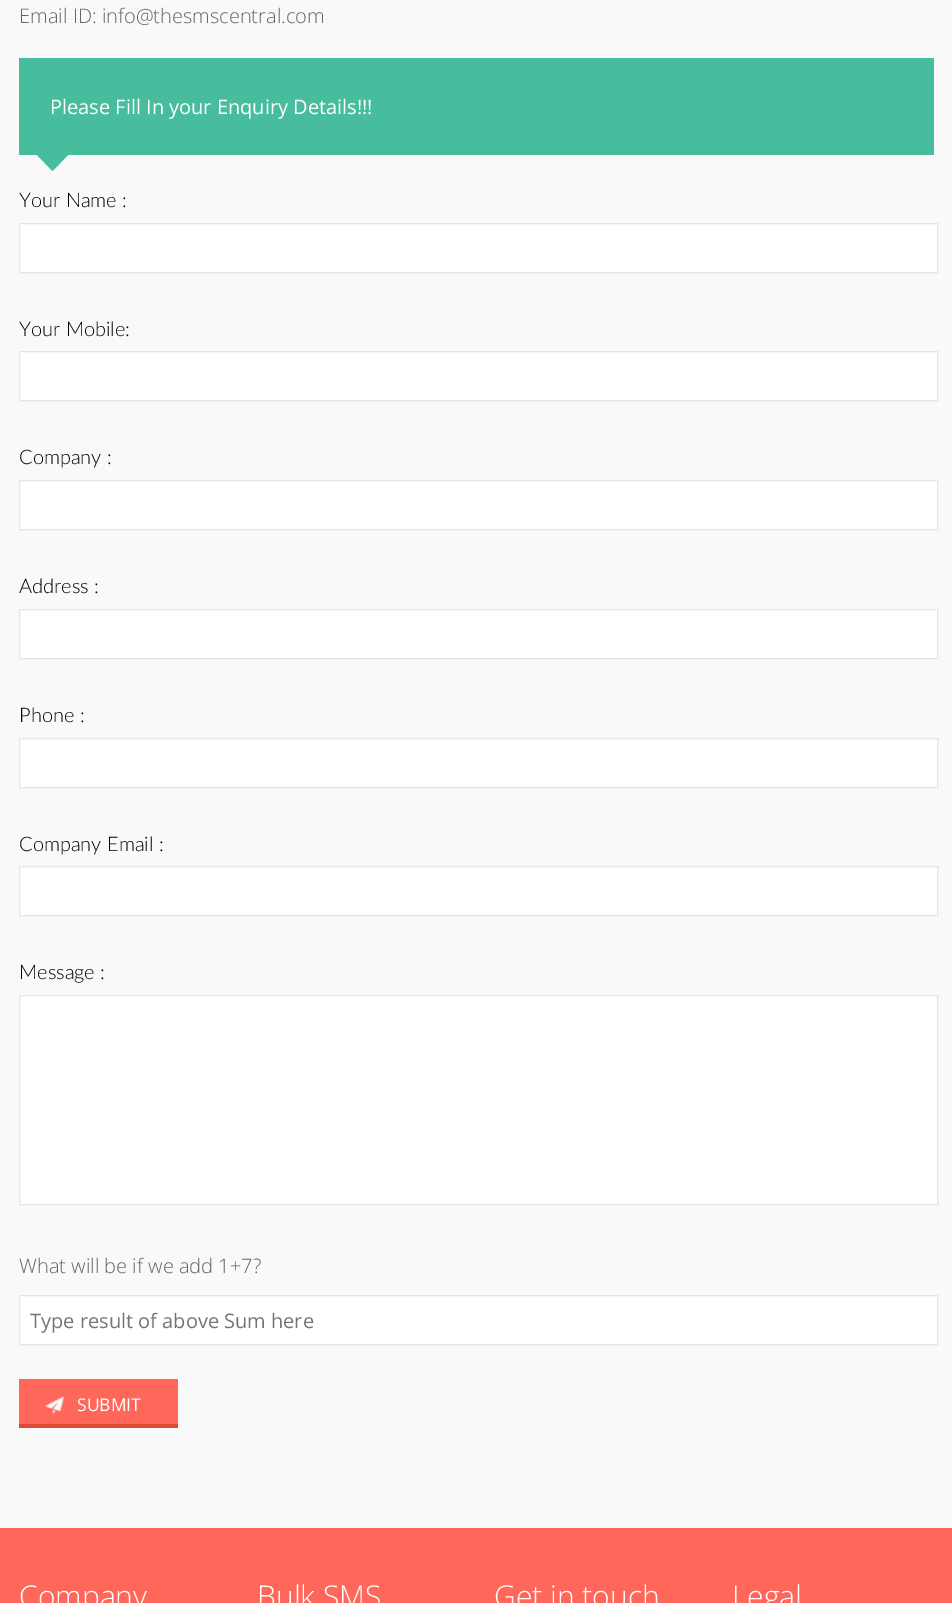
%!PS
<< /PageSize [952 1603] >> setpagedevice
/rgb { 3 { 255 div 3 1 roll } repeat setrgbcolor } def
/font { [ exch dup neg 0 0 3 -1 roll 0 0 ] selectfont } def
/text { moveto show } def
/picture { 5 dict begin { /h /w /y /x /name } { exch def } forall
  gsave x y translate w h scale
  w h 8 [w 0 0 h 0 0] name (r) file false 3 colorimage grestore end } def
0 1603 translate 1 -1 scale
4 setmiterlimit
249 249 249 rgb
0 0 952 1603 rectfill
71 189 157 rgb
19 58 915 97 rectfill
36 154 moveto 33 0 rlineto -16.5 17 rlineto closepath fill
255 255 255 rgb
19.5 223.5 moveto 918 0 rlineto 0 49 rlineto -918 0 rlineto closepath gsave fill grestore
230 229 224 rgb
stroke
255 255 255 rgb
19.5 351.5 moveto 918 0 rlineto 0 49 rlineto -918 0 rlineto closepath gsave fill grestore
230 229 224 rgb
stroke
255 255 255 rgb
19.5 480.5 moveto 918 0 rlineto 0 49 rlineto -918 0 rlineto closepath gsave fill grestore
230 229 224 rgb
stroke
255 255 255 rgb
19.5 609.5 moveto 918 0 rlineto 0 49 rlineto -918 0 rlineto closepath gsave fill grestore
230 229 224 rgb
stroke
255 255 255 rgb
19.5 738.5 moveto 918 0 rlineto 0 49 rlineto -918 0 rlineto closepath gsave fill grestore
230 229 224 rgb
stroke
255 255 255 rgb
19.5 866.5 moveto 918 0 rlineto 0 49 rlineto -918 0 rlineto closepath gsave fill grestore
230 229 224 rgb
stroke
255 255 255 rgb
19.5 995.5 moveto 918 0 rlineto 0 209 rlineto -918 0 rlineto closepath gsave fill grestore
230 229 224 rgb
stroke
255 255 255 rgb
19.5 1295.5 moveto 918 0 rlineto 0 49 rlineto -918 0 rlineto closepath gsave fill grestore
230 229 224 rgb
stroke
255 103 91 rgb
19 1379 159 45 rectfill
(img_01.rgb) 45 1396 19 19 picture
221 74 56 rgb
19 1424 159 4 rectfill
255 103 91 rgb
0 1528 952 75 rectfill
/OpenSans-Light 20 font
101 101 101 rgb
(Email ID: info@thesmscentral.com) 19 23 text
/OpenSans-Regular 20 font
255 255 255 rgb
(Please Fill In your Enquiry Details!!!) 50 114 text
/Lato-Light 20 font
0 0 0 rgb
(Your Name :) 19 207 text
(Your Mobile:) 19 336 text
(Company :) 19 464 text
(Address :) 19 593 text
(Phone :) 19 722 text
(Company Email :) 19 851 text
(Message :) 19 979 text
/OpenSans-Light 20 font
101 101 101 rgb
(What will be if we add 1+7?) 19 1273 text
/OpenSans-Regular 20 font
117 117 117 rgb
(Type result of above Sum here) 30 1328 text
/OpenSans-Regular 17.5 font
255 255 255 rgb
(SUBMIT) 77 1411 text
/OpenSans-Light 30 font
(Company) 19 1607 text
(Bulk SMS) 257 1607 text
(Get in touch) 494 1607 text
(Legal) 732 1607 text
showpage
